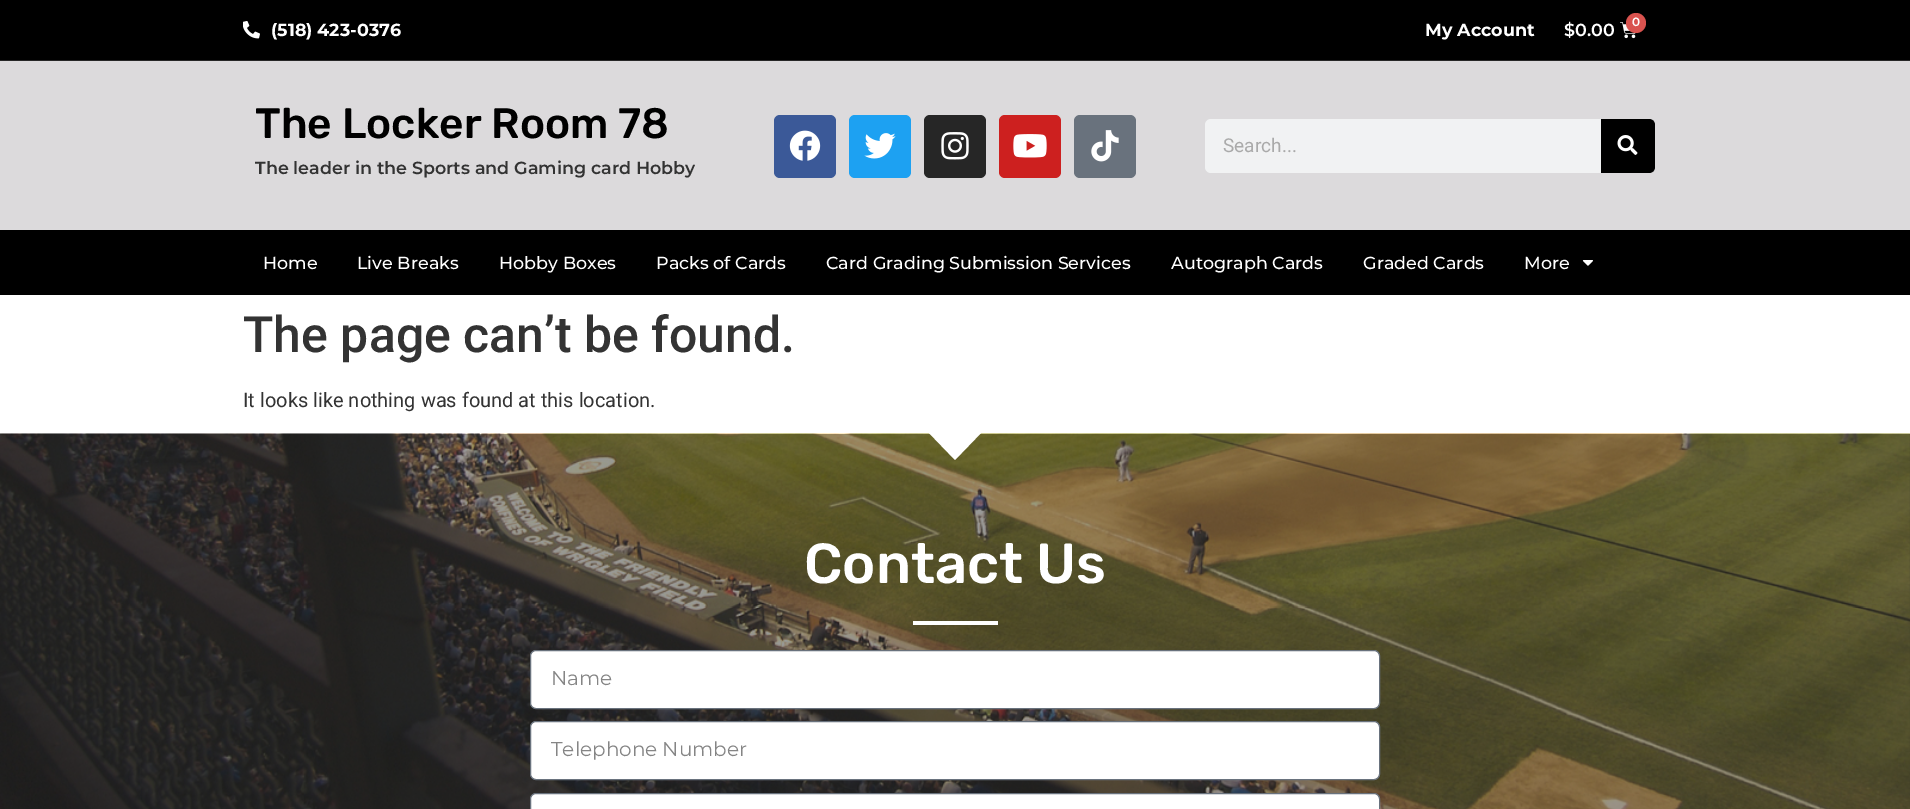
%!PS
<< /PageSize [1910 809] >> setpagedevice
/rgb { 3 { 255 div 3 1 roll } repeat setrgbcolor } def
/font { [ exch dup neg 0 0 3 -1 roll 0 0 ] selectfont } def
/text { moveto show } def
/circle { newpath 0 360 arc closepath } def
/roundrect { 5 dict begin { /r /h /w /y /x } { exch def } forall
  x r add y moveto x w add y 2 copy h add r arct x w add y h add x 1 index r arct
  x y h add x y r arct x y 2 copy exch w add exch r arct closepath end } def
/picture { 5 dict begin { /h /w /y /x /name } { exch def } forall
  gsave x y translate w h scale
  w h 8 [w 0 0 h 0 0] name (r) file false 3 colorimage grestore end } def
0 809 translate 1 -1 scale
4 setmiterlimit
255 255 255 rgb
0 0 1910 809 rectfill
0 0 0 rgb
0 0 1910 60 rectfill
39 39 39 rgb
0 60 1910 1 rectfill
(img_01.rgb) 243 21 17 18 picture
(img_02.rgb) 1620 22 16 17 picture
217 83 79 rgb
1636 23 10 circle fill
220 218 220 rgb
0 61 1910 169 rectfill
59 89 152 rgb
774 115 62 63 6 roundrect fill
(img_03.rgb) 789 130 32 31 picture
29 161 242 rgb
849 115 62 63 6 roundrect fill
(img_04.rgb) 864 133 32 26 picture
38 38 38 rgb
924 115 62 63 6 roundrect fill
(img_05.rgb) 941 132 28 28 picture
205 32 31 rgb
999 115 62 63 6 roundrect fill
(img_06.rgb) 1013 134 34 24 picture
105 114 125 rgb
1074 115 62 63 6 roundrect fill
(img_07.rgb) 1091 130 28 32 picture
241 242 243 rgb
1205 119 450 54 6 roundrect fill
0 0 0 rgb
1601 119 moveto 48 0 rlineto 3.5 0 6 2.5 6 6 rcurveto 0 42 rlineto 0 3.5 -2.5 6 -6 6 rcurveto -48 0 rlineto closepath fill
(img_08.rgb) 1617 135 21 20 picture
0 230 1910 65 rectfill
(img_09.rgb) 1582 260 11 6 picture
51 51 51 rgb
0 434 1910 375 rectfill
(img_10.rgb) 0 433 1910 376 picture
gsave
0 433 1910 27 rectclip
255 255 255 rgb
955 460 moveto -27 -28 rlineto 54 0 rlineto closepath fill
grestore
255 255 255 rgb
913 621 85 4 rectfill
530.5 650.5 849 58 5.5 roundrect gsave fill grestore
105 114 125 rgb
stroke
255 255 255 rgb
530.5 721.5 849 58 5.5 roundrect gsave fill grestore
105 114 125 rgb
stroke
255 255 255 rgb
530.5 793.5 849 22 5.5 roundrect gsave fill grestore
105 114 125 rgb
stroke
/Montserrat-Bold 17.5 font
255 255 255 rgb
(\(518\) 423-0376) 271 36 text
(My Account) 1425 36 text
/Montserrat-SemiBold 17.5 font
($0.00) 1564 36 text
/Montserrat-SemiBold 12 font
(0) 1632 26 text
/Rubik-Medium 42.5 font
0 0 0 rgb
(The Locker Room 78) 255 138 text
/Montserrat-SemiBold 17.5 font
51 51 51 rgb
(The leader in the Sports and Gaming card Hobby) 255 174 text
/Roboto-Regular 19 font
170 170 170 rgb
(Search...) 1223 152 text
/Montserrat-Medium 17.5 font
255 255 255 rgb
(Home) 263 269 text
(Live Breaks) 357 269 text
(Hobby Boxes) 499 269 text
(Packs of Cards) 656 269 text
(Card Grading Submission Services) 826 269 text
(Autograph Cards) 1171 269 text
(Graded Cards) 1363 269 text
(More) 1524 269 text
/Roboto-Medium 50 font
51 51 51 rgb
(The page can’t be found.) 243 352 text
/Roboto-Regular 20 font
(It looks like nothing was found at this location.) 243 407 text
/Rubik-Medium 56.25 font
255 255 255 rgb
(Contact Us) 804 583 text
/Montserrat-Regular 20 font
133 133 133 rgb
(Name) 551 685 text
(Telephone Number) 551 756 text
showpage
